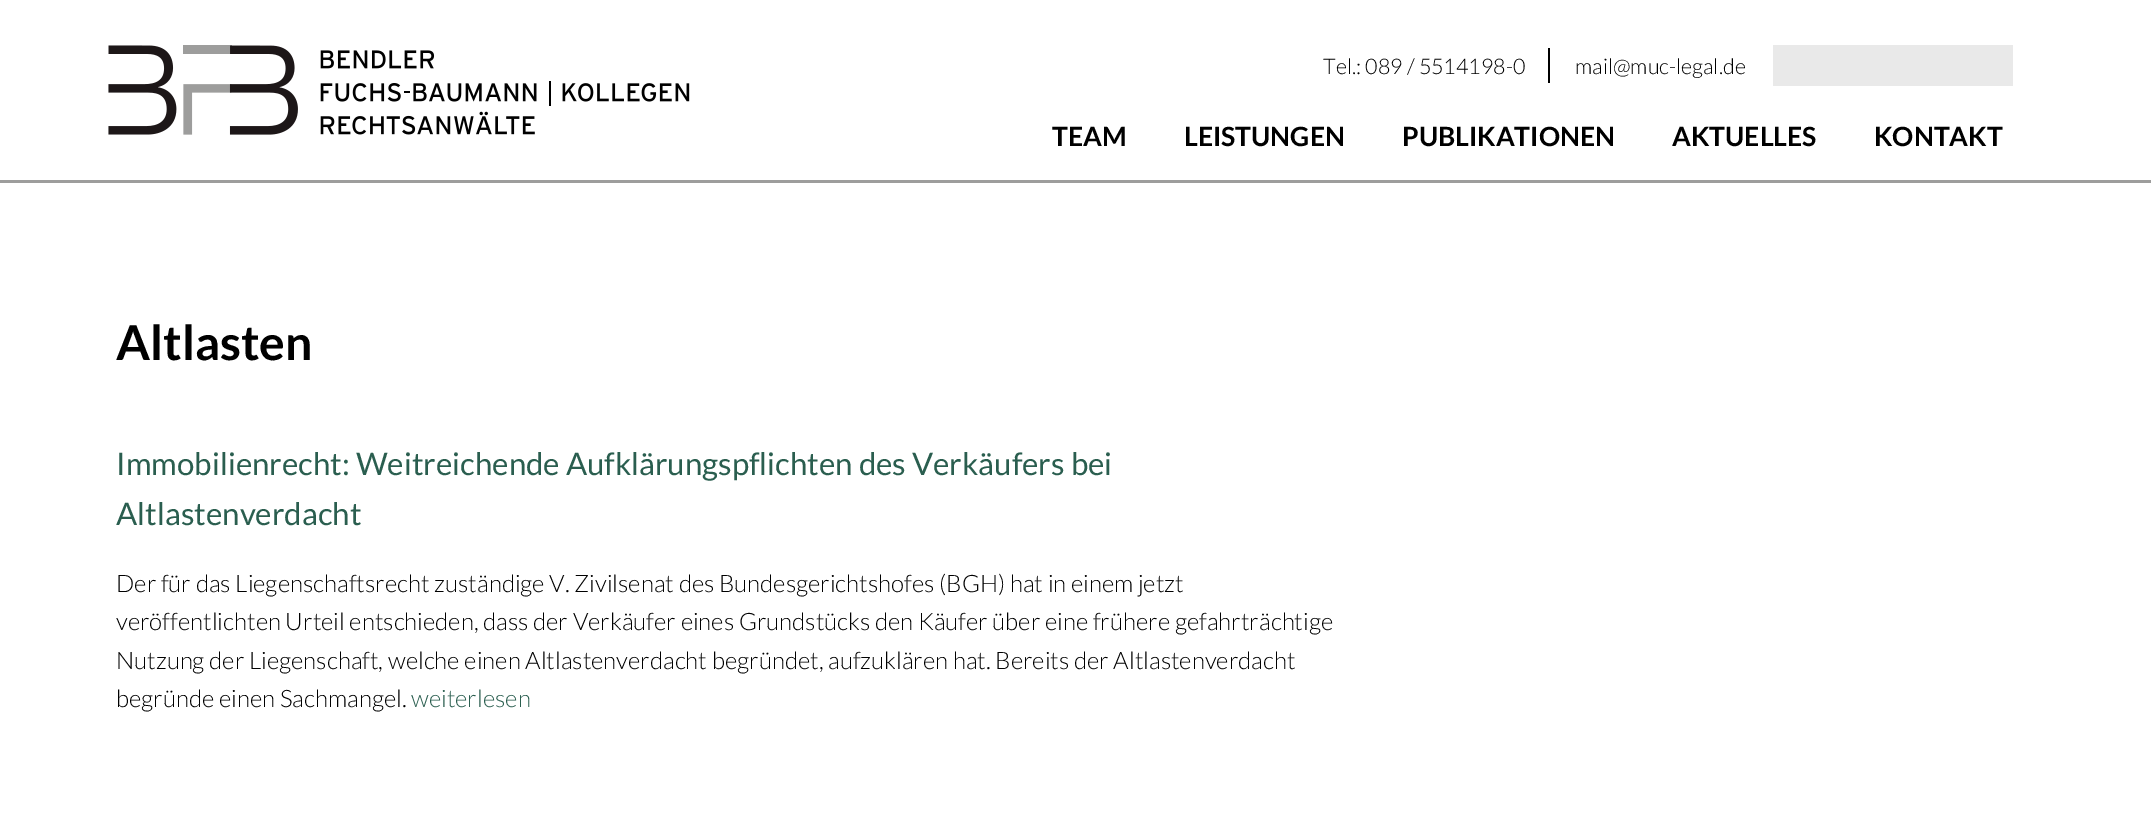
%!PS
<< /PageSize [2151 838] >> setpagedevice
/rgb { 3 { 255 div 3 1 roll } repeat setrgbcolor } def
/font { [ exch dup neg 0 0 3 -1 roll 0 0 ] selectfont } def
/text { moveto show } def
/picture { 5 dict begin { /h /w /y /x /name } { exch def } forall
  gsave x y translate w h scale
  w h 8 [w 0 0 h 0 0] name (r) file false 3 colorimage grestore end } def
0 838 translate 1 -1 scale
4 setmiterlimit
255 255 255 rgb
0 0 2151 838 rectfill
157 157 156 rgb
0 180 2151 3 rectfill
(img_01.rgb) 108 45 582 90 picture
0 0 0 rgb
1548 48 2 35 rectfill
233 233 233 rgb
1773 45 240 41 rectfill
/Lato-Light 21.5 font
0 0 0 rgb
(Tel.: 089 / 5514198-0) 1323 74 text
(mail@muc-legal.de) 1575 74 text
/Lato-Bold 26.5 font
(TEAM) 1052 146 text
(LEISTUNGEN) 1184 146 text
(PUBLIKATIONEN) 1402 146 text
(AKTUELLES) 1672 146 text
(KONTAKT) 1874 146 text
/Lato-Bold 48 font
(Altlasten) 116 360 text
/Lato-Regular 31.2 font
42 94 79 rgb
(Immobilienrecht: Weitreichende Aufklärungspflichten des Verkäufers bei) 116 475 text
(Altlastenverdacht) 116 525 text
/Lato-Light 24 font
0 0 0 rgb
(Der für das Liegenschaftsrecht zuständige V. Zivilsenat des Bundesgerichtshofes \(BGH\) hat in einem jetzt) 116 592 text
(veröffentlichten Urteil entschieden, dass der Verkäufer eines Grundstücks den Käufer über eine frühere gefahrträchtige) 116 630 text
(Nutzung der Liegenschaft, welche einen Altlastenverdacht begründet, aufzuklären hat. Bereits der Altlastenverdacht) 116 669 text
(begründe einen Sachmangel.) 116 707 text
42 94 79 rgb
(weiterlesen) 411 707 text
showpage
